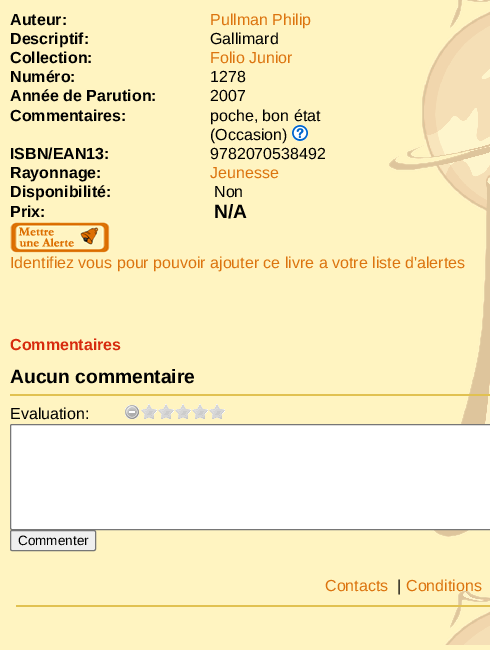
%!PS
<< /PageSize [490 650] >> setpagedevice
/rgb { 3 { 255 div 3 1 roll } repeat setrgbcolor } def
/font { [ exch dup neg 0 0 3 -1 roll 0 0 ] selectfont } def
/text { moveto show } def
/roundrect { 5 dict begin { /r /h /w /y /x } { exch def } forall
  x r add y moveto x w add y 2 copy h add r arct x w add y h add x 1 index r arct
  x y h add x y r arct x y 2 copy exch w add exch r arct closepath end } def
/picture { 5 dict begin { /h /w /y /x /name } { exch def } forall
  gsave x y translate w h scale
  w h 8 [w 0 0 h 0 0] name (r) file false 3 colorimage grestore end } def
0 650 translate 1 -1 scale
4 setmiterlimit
255 244 193 rgb
0 0 490 650 rectfill
(img_01.rgb) 389 0 101 645 picture
(img_02.rgb) 292 125 16 16 picture
(img_03.rgb) 10 222 100 31 picture
225 193 81 rgb
10 394 480 2 rectfill
(img_04.rgb) 125 405 14 14 picture
(img_05.rgb) 141 404 16 15 picture
(img_05.rgb) 158 404 16 15 picture
(img_05.rgb) 175 404 16 15 picture
(img_05.rgb) 192 404 16 15 picture
(img_05.rgb) 209 404 16 15 picture
255 255 255 rgb
10.5 424.5 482 105 1.5 roundrect gsave fill grestore
118 118 118 rgb
stroke
239 239 239 rgb
10.5 530.5 85 20 1.5 roundrect gsave fill grestore
118 118 118 rgb
stroke
225 193 81 rgb
16 605 474 2 rectfill
/LiberationSans-Bold 16 font
0 0 0 rgb
(Auteur:) 10 25 text
/LiberationSans-Regular 16 font
220 116 15 rgb
(Pullman Philip) 210 25 text
/LiberationSans-Bold 16 font
0 0 0 rgb
(Descriptif:) 10 44 text
/LiberationSans-Regular 16 font
(Gallimard) 210 44 text
/LiberationSans-Bold 16 font
(Collection:) 10 63 text
/LiberationSans-Regular 16 font
220 116 15 rgb
(Folio Junior) 210 63 text
/LiberationSans-Bold 16 font
0 0 0 rgb
(Numéro:) 10 82 text
/LiberationSans-Regular 16 font
(1278) 210 82 text
/LiberationSans-Bold 16 font
(Année de Parution:) 10 101 text
/LiberationSans-Regular 16 font
(2007) 210 101 text
/LiberationSans-Bold 16 font
(Commentaires:) 10 121 text
/LiberationSans-Regular 16 font
(poche, bon état) 210 121 text
(\(Occasion\)) 210 140 text
/LiberationSans-Bold 16 font
(ISBN/EAN13:) 10 159 text
/LiberationSans-Regular 16 font
(9782070538492) 210 159 text
/LiberationSans-Bold 16 font
(Rayonnage:) 10 178 text
/LiberationSans-Regular 16 font
220 116 15 rgb
(Jeunesse) 210 178 text
/LiberationSans-Bold 16 font
0 0 0 rgb
(Disponibilité:) 10 197 text
/LiberationSans-Regular 16 font
(Non) 214 197 text
/LiberationSans-Bold 16 font
(Prix:) 10 217 text
/LiberationSans-Bold 19.25 font
(N/A) 214 218 text
/LiberationSans-Regular 16 font
220 116 15 rgb
(Identifiez vous pour pouvoir ajouter ce livre a votre liste d'alertes) 10 268 text
/LiberationSans-Bold 16 font
215 43 14 rgb
(Commentaires) 10 350 text
/LiberationSans-Bold 19.25 font
0 0 0 rgb
(Aucun commentaire) 10 383 text
/LiberationSans-Regular 16 font
(Evaluation:) 10 419 text
/LiberationSans-Regular 13.5 font
(Commenter) 18 545 text
/LiberationSans-Regular 16 font
220 116 15 rgb
(Contacts) 325 591 text
0 0 0 rgb
(|) 397 591 text
220 116 15 rgb
(Conditions) 406 591 text
showpage
